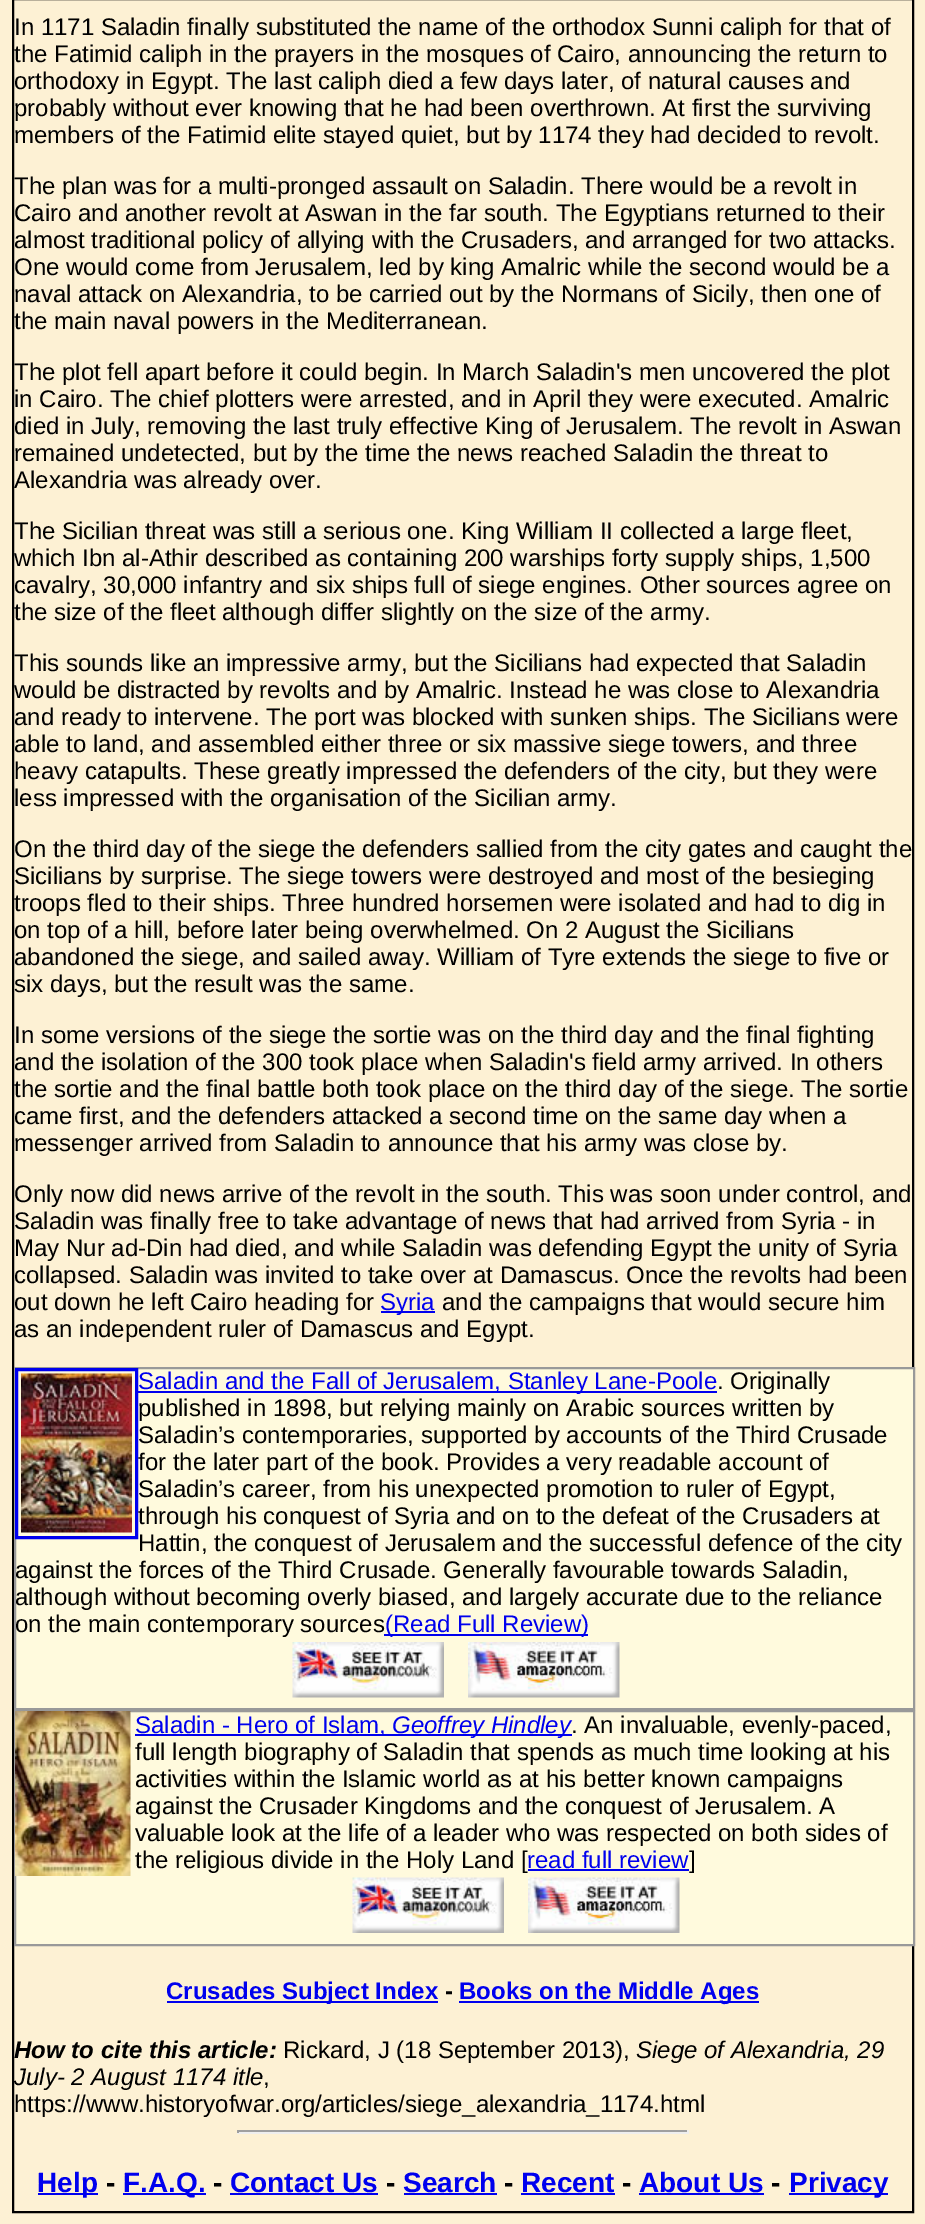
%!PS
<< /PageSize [925 2224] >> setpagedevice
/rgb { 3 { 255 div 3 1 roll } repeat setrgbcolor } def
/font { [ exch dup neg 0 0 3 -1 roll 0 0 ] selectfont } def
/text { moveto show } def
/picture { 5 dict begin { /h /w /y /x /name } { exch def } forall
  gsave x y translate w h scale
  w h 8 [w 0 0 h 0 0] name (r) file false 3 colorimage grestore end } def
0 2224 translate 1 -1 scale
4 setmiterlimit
253 241 212 rgb
0 0 925 2224 rectfill
0 0 0 rgb
2 setlinewidth
13 -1 900 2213 rectstroke
0 0 238 rgb
381 1311 54 2 rectfill
255 250 221 rgb
15 1368 moveto 899 0 rlineto 0 341 rlineto -899 0 rlineto closepath gsave fill grestore
153 153 153 rgb
stroke
0 0 238 rgb
3 setlinewidth
16.5 1369.5 120 168 rectstroke
(img_01.rgb) 21 1373 111 160 picture
138 1391 579 2 rectfill
384 1634 204 2 rectfill
(img_02.rgb) 292 1642 152 56 picture
(img_03.rgb) 468 1642 152 56 picture
255 250 221 rgb
15 1711 moveto 899 0 rlineto 0 234 rlineto -899 0 rlineto closepath gsave fill grestore
153 153 153 rgb
2 setlinewidth
stroke
(img_04.rgb) 15 1711 116 165 picture
0 0 238 rgb
135 1734 437 2 rectfill
528 1869 161 2 rectfill
(img_05.rgb) 352 1877 152 56 picture
(img_06.rgb) 528 1877 152 56 picture
167 2001 271 2 rectfill
459 2001 300 2 rectfill
159 159 159 rgb
237 2130 452 2 rectfill
238 238 238 rgb
687 2130 2 3 rectfill
237 2132 452 2 rectfill
159 159 159 rgb
237 2130 2 3 rectfill
0 0 238 rgb
38 2193 60 2 rectfill
123 2193 83 2 rectfill
230 2193 148 2 rectfill
404 2193 93 2 rectfill
521 2193 94 2 rectfill
639 2193 125 2 rectfill
789 2193 99 2 rectfill
/LiberationSans-Regular 24 font
0 0 0 rgb
(In 1171 Saladin finally substituted the name of the orthodox Sunni caliph for that of) 14 35 text
(the Fatimid caliph in the prayers in the mosques of Cairo, announcing the return to) 14 62 text
(orthodoxy in Egypt. The last caliph died a few days later, of natural causes and) 14 89 text
(probably without ever knowing that he had been overthrown. At first the surviving) 14 116 text
(members of the Fatimid elite stayed quiet, but by 1174 they had decided to revolt.) 14 143 text
(The plan was for a multi-pronged assault on Saladin. There would be a revolt in) 14 194 text
(Cairo and another revolt at Aswan in the far south. The Egyptians returned to their) 14 221 text
(almost traditional policy of allying with the Crusaders, and arranged for two attacks.) 14 248 text
(One would come from Jerusalem, led by king Amalric while the second would be a) 14 275 text
(naval attack on Alexandria, to be carried out by the Normans of Sicily, then one of) 14 302 text
(the main naval powers in the Mediterranean.) 14 329 text
(The plot fell apart before it could begin. In March Saladin's men uncovered the plot) 14 380 text
(in Cairo. The chief plotters were arrested, and in April they were executed. Amalric) 14 407 text
(died in July, removing the last truly effective King of Jerusalem. The revolt in Aswan) 14 434 text
(remained undetected, but by the time the news reached Saladin the threat to) 14 461 text
(Alexandria was already over.) 14 488 text
(The Sicilian threat was still a serious one. King William II collected a large fleet,) 14 539 text
(which Ibn al-Athir described as containing 200 warships forty supply ships, 1,500) 14 566 text
(cavalry, 30,000 infantry and six ships full of siege engines. Other sources agree on) 14 593 text
(the size of the fleet although differ slightly on the size of the army.) 14 620 text
(This sounds like an impressive army, but the Sicilians had expected that Saladin) 14 671 text
(would be distracted by revolts and by Amalric. Instead he was close to Alexandria) 14 698 text
(and ready to intervene. The port was blocked with sunken ships. The Sicilians were) 14 725 text
(able to land, and assembled either three or six massive siege towers, and three) 14 752 text
(heavy catapults. These greatly impressed the defenders of the city, but they were) 14 779 text
(less impressed with the organisation of the Sicilian army.) 14 806 text
(On the third day of the siege the defenders sallied from the city gates and caught the) 14 857 text
(Sicilians by surprise. The siege towers were destroyed and most of the besieging) 14 884 text
(troops fled to their ships. Three hundred horsemen were isolated and had to dig in) 14 911 text
(on top of a hill, before later being overwhelmed. On 2 August the Sicilians) 14 938 text
(abandoned the siege, and sailed away. William of Tyre extends the siege to five or) 14 965 text
(six days, but the result was the same.) 14 992 text
(In some versions of the siege the sortie was on the third day and the final fighting) 14 1043 text
(and the isolation of the 300 took place when Saladin's field army arrived. In others) 14 1070 text
(the sortie and the final battle both took place on the third day of the siege. The sortie) 14 1097 text
(came first, and the defenders attacked a second time on the same day when a) 14 1124 text
(messenger arrived from Saladin to announce that his army was close by.) 14 1151 text
(Only now did news arrive of the revolt in the south. This was soon under control, and) 14 1202 text
(Saladin was finally free to take advantage of news that had arrived from Syria - in) 14 1229 text
(May Nur ad-Din had died, and while Saladin was defending Egypt the unity of Syria) 14 1256 text
(collapsed. Saladin was invited to take over at Damascus. Once the revolts had been) 14 1283 text
(out down he left Cairo heading for) 14 1310 text
0 0 238 rgb
(Syria) 380 1310 text
0 0 0 rgb
(and the campaigns that would secure him) 442 1310 text
(as an independent ruler of Damascus and Egypt.) 14 1337 text
0 0 238 rgb
(Saladin and the Fall of Jerusalem, Stanley Lane-Poole) 138 1389 text
0 0 0 rgb
(. Originally) 717 1389 text
(published in 1898, but relying mainly on Arabic sources written by) 138 1416 text
(Saladin’s contemporaries, supported by accounts of the Third Crusade) 138 1443 text
(for the later part of the book. Provides a very readable account of) 138 1470 text
(Saladin’s career, from his unexpected promotion to ruler of Egypt,) 138 1497 text
(through his conquest of Syria and on to the defeat of the Crusaders at) 138 1524 text
(Hattin, the conquest of Jerusalem and the successful defence of the city) 138 1551 text
(against the forces of the Third Crusade. Generally favourable towards Saladin,) 15 1578 text
(although without becoming overly biased, and largely accurate due to the reliance) 15 1605 text
(on the main contemporary sources) 15 1632 text
0 0 238 rgb
(\(Read Full Review\)) 385 1632 text
(Saladin - Hero of Islam,) 135 1733 text
/LiberationSans-Italic 24 font
(Geoffrey Hindley) 392 1733 text
/LiberationSans-Regular 24 font
0 0 0 rgb
(. An invaluable, evenly-paced,) 571 1733 text
(full length biography of Saladin that spends as much time looking at his) 135 1760 text
(activities within the Islamic world as at his better known campaigns) 135 1787 text
(against the Crusader Kingdoms and the conquest of Jerusalem. A) 135 1814 text
(valuable look at the life of a leader who was respected on both sides of) 135 1841 text
(the religious divide in the Holy Land [) 135 1868 text
0 0 238 rgb
(read full review) 527 1868 text
0 0 0 rgb
(]) 689 1868 text
/LiberationSans-Bold 24 font
0 0 238 rgb
(Crusades Subject Index) 166 1999 text
0 0 0 rgb
(-) 445 1999 text
0 0 238 rgb
(Books on the Middle Ages) 459 1999 text
/LiberationSans-BoldItalic 24 font
0 0 0 rgb
(How to cite this article:) 14 2058 text
/LiberationSans-Regular 24 font
(Rickard, J \(18 September 2013\),) 283 2058 text
/LiberationSans-Italic 24 font
(Siege of Alexandria, 29) 636 2058 text
(July- 2 August 1174 itle) 14 2085 text
/LiberationSans-Regular 24 font
(,) 263 2085 text
(https://www.historyofwar.org/articles/siege_alexandria_1174.html) 14 2112 text
/LiberationSans-Bold 28 font
0 0 238 rgb
(Help) 37 2192 text
0 0 0 rgb
(-) 106 2192 text
0 0 238 rgb
(F.A.Q.) 123 2192 text
0 0 0 rgb
(-) 213 2192 text
0 0 238 rgb
(Contact Us) 230 2192 text
0 0 0 rgb
(-) 386 2192 text
0 0 238 rgb
(Search) 403 2192 text
0 0 0 rgb
(-) 504 2192 text
0 0 238 rgb
(Recent) 521 2192 text
0 0 0 rgb
(-) 622 2192 text
0 0 238 rgb
(About Us) 639 2192 text
0 0 0 rgb
(-) 771 2192 text
0 0 238 rgb
(Privacy) 789 2192 text
showpage
